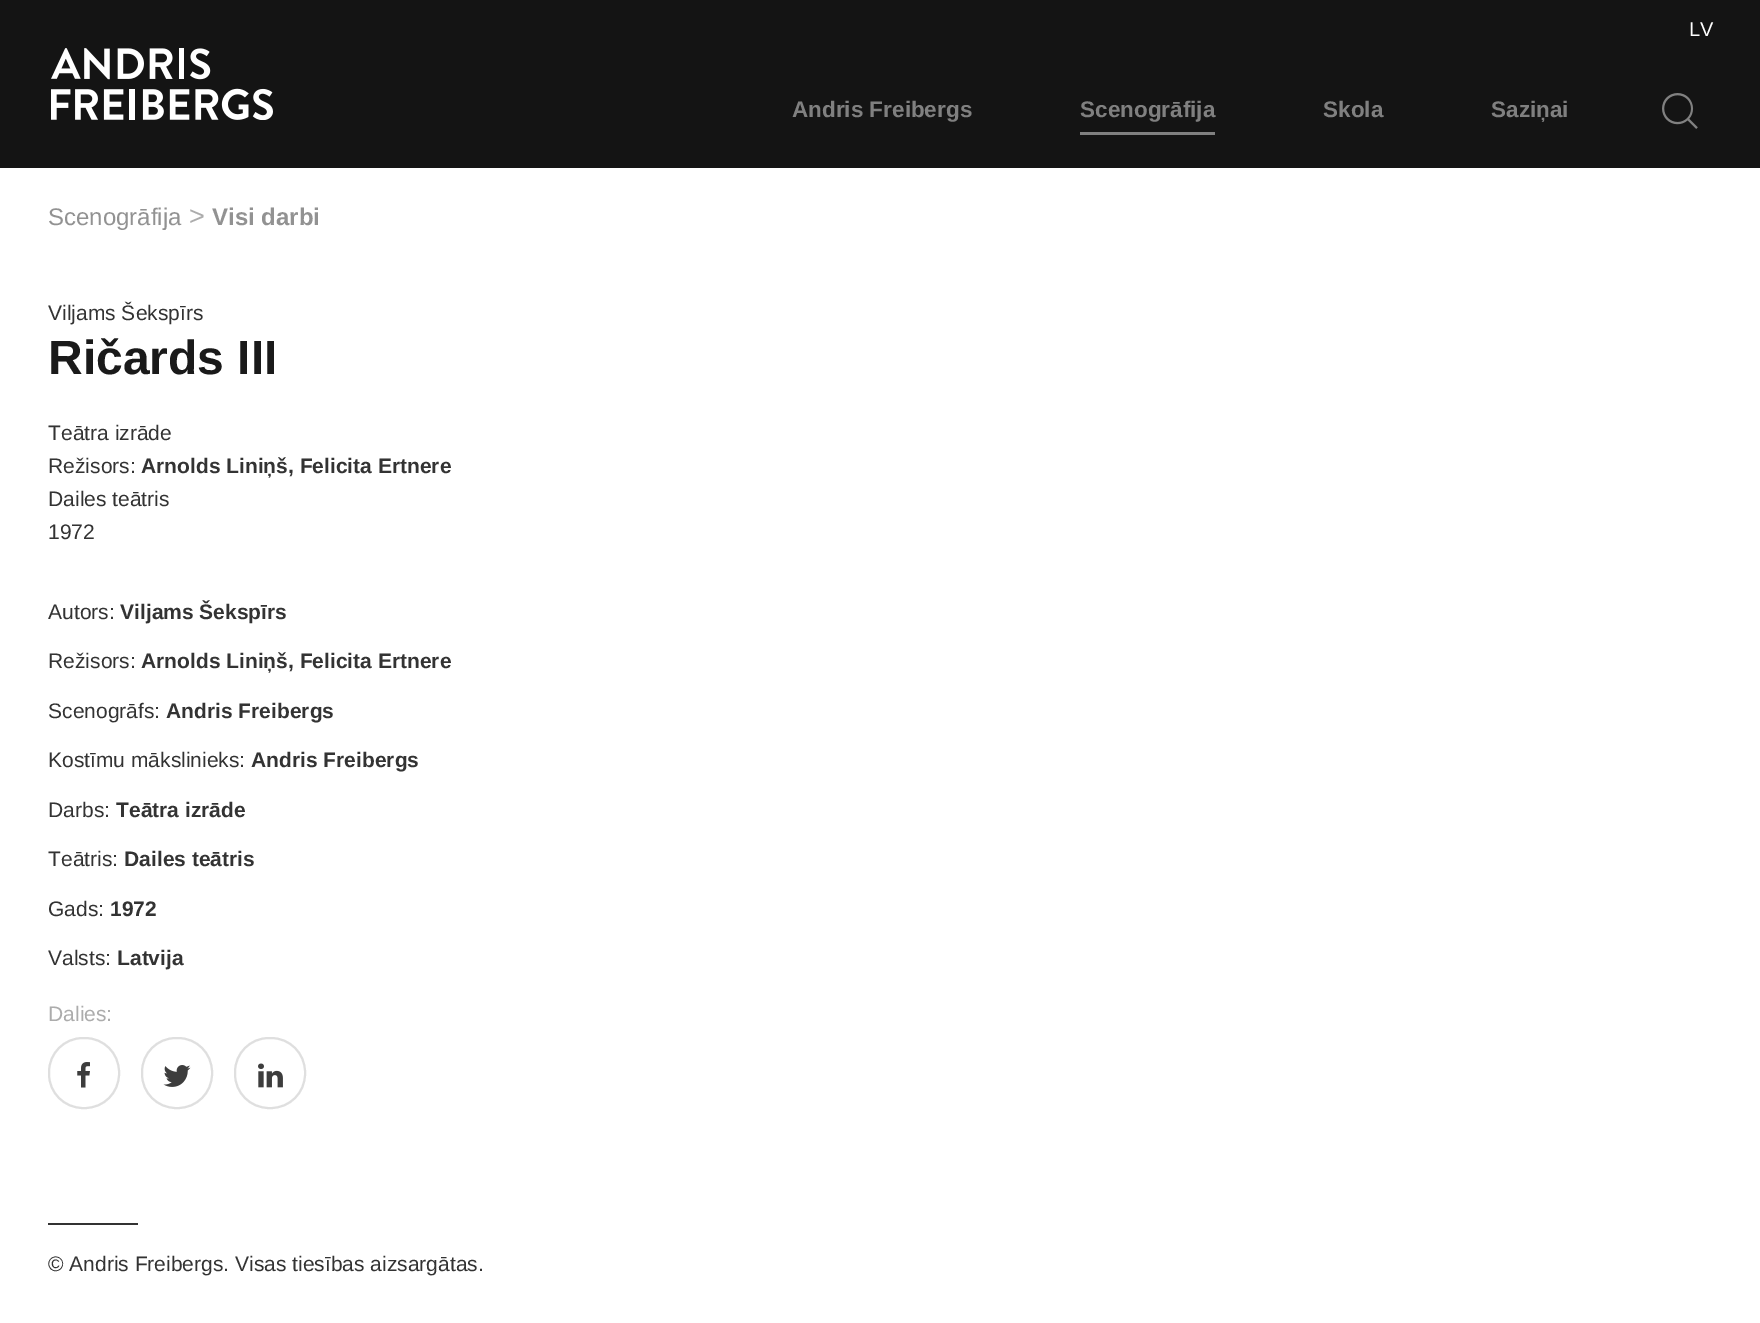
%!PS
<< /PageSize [1760 1323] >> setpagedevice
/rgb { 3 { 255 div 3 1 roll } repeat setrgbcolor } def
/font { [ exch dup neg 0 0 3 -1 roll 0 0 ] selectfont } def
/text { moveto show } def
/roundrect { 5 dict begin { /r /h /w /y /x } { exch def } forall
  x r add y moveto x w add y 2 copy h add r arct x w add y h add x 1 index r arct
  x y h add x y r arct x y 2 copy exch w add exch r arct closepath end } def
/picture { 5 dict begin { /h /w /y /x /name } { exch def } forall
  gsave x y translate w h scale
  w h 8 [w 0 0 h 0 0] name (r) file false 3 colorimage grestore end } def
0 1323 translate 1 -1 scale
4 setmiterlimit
255 255 255 rgb
0 0 1760 1323 rectfill
20 20 20 rgb
0 0 1760 168 rectfill
(img_01.rgb) 51 48 222 72 picture
128 128 128 rgb
1080 132 135 3 rectfill
(img_02.rgb) 1662 93 36 36 picture
223 223 223 rgb
2 setlinewidth
49 1038 70 70 34 roundrect stroke
(img_03.rgb) 77 1062 13 26 picture
142 1038 70 70 34 roundrect stroke
(img_04.rgb) 163 1065 28 22 picture
235 1038 70 70 34 roundrect stroke
(img_05.rgb) 258 1063 25 25 picture
51 51 51 rgb
48 1223 90 2 rectfill
/LiberationSans-Regular 20 font
255 255 255 rgb
(LV) 1689 36 text
/LiberationSans-Bold 22.5 font
128 128 128 rgb
(Andris Freibergs) 792 117 text
(Scenogrāfija) 1080 117 text
(Skola) 1323 117 text
(Saziņai) 1491 117 text
/LiberationSans-Regular 24 font
146 146 146 rgb
(Scenogrāfija) 48 225 text
/LiberationSans-Regular 27 font
172 172 172 rgb
(>) 189 225 text
/LiberationSans-Bold 24 font
146 146 146 rgb
(Visi darbi) 212 225 text
/LiberationSans-Regular 21 font
51 51 51 rgb
(Viljams Šekspīrs) 48 320 text
/LiberationSans-Bold 48 font
26 26 26 rgb
(Ričards III) 48 374 text
/LiberationSans-Regular 21 font
51 51 51 rgb
(Teātra izrāde) 48 440 text
(Režisors:) 48 473 text
/LiberationSans-Bold 21 font
(Arnolds Liniņš, Felicita Ertnere) 141 473 text
/LiberationSans-Regular 21 font
(Dailes teātris) 48 506 text
(1972) 48 539 text
(Autors:) 48 619 text
/LiberationSans-Bold 21 font
(Viljams Šekspīrs) 120 619 text
/LiberationSans-Regular 21 font
(Režisors:) 48 668 text
/LiberationSans-Bold 21 font
(Arnolds Liniņš, Felicita Ertnere) 141 668 text
/LiberationSans-Regular 21 font
(Scenogrāfs:) 48 718 text
/LiberationSans-Bold 21 font
(Andris Freibergs) 166 718 text
/LiberationSans-Regular 21 font
(Kostīmu mākslinieks:) 48 767 text
/LiberationSans-Bold 21 font
(Andris Freibergs) 251 767 text
/LiberationSans-Regular 21 font
(Darbs:) 48 817 text
/LiberationSans-Bold 21 font
(Teātra izrāde) 116 817 text
/LiberationSans-Regular 21 font
(Teātris:) 48 866 text
/LiberationSans-Bold 21 font
(Dailes teātris) 124 866 text
/LiberationSans-Regular 21 font
(Gads:) 48 916 text
/LiberationSans-Bold 21 font
(1972) 110 916 text
/LiberationSans-Regular 21 font
(Valsts:) 48 965 text
/LiberationSans-Bold 21 font
(Latvija) 117 965 text
/LiberationSans-Regular 21 font
172 172 172 rgb
(Dalies:) 48 1021 text
51 51 51 rgb
(© Andris Freibergs. Visas tiesības aizsargātas.) 48 1271 text
showpage
